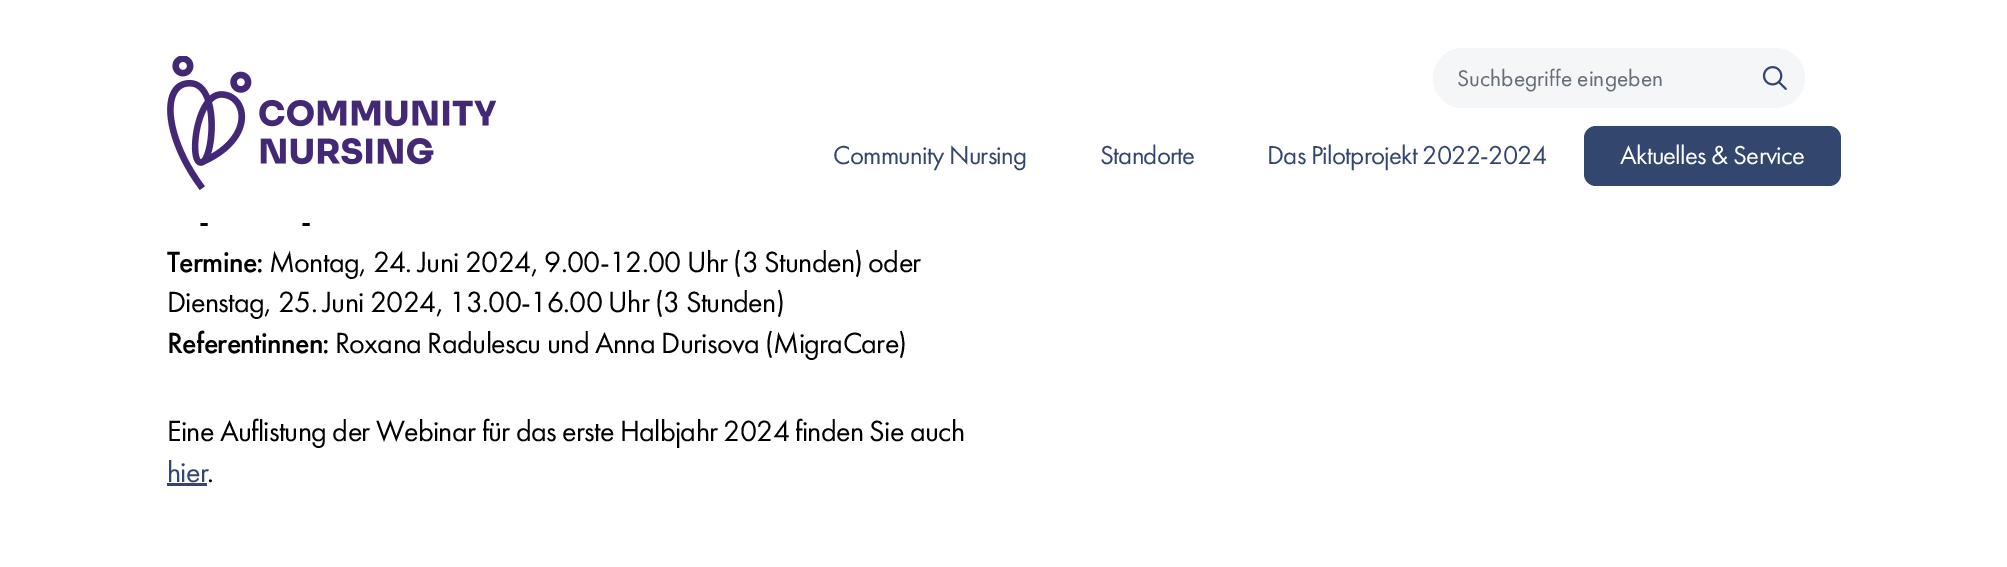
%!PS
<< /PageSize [2007 567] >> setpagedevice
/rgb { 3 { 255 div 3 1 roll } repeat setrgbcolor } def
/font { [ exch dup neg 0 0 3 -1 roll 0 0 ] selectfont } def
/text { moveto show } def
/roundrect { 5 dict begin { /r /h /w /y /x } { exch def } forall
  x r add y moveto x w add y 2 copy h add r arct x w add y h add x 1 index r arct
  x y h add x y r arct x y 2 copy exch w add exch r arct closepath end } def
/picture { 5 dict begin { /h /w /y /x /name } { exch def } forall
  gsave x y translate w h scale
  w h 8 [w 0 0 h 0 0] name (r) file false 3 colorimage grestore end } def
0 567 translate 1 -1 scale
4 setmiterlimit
255 255 255 rgb
0 0 2007 567 rectfill
(img_01.rgb) 167 56 330 135 picture
245 246 248 rgb
1433 48 372 60 30 roundrect fill
(img_02.rgb) 1762 66 25 24 picture
50 70 110 rgb
1584 126 257 60 12 roundrect fill
167 483 40 3 rectfill
/FuturaPT-Regular 21 font
101 110 118 rgb
(Suchbegriffe eingeben) 1457 86 text
/FuturaPT-Regular 24 font
50 70 110 rgb
833 164 moveto -0.75 0 (Community Nursing) ashow
1100 164 moveto -0.75 0 (Standorte) ashow
1267 164 moveto -0.75 0 (Das Pilotprojekt 2022-2024) ashow
255 255 255 rgb
1620 164 moveto -0.75 0 (Aktuelles & Service) ashow
/FuturaPT-Medium 27 font
0 0 0 rgb
199 231 moveto -0.75 0 (-) ashow
301 231 moveto -0.75 0 (-) ashow
167 272 moveto -0.75 0 (Termine:) ashow
/FuturaPT-Regular 27 font
269 272 moveto -0.75 0 (Montag, 24. Juni 2024, 9.00-12.00 Uhr \(3 Stunden\) oder) ashow
167 312 moveto -0.75 0 (Dienstag, 25. Juni 2024, 13.00-16.00 Uhr \(3 Stunden\)) ashow
/FuturaPT-Medium 27 font
167 353 moveto -0.75 0 (Referentinnen:) ashow
/FuturaPT-Regular 27 font
335 353 moveto -0.75 0 (Roxana Radulescu und Anna Durisova \(MigraCare\)) ashow
167 441 moveto -0.75 0 (Eine Auflistung der Webinar für das erste Halbjahr 2024 finden Sie auch) ashow
50 70 110 rgb
167 482 moveto -0.75 0 (hier) ashow
0 0 0 rgb
207 482 moveto -0.75 0 (.) ashow
showpage
